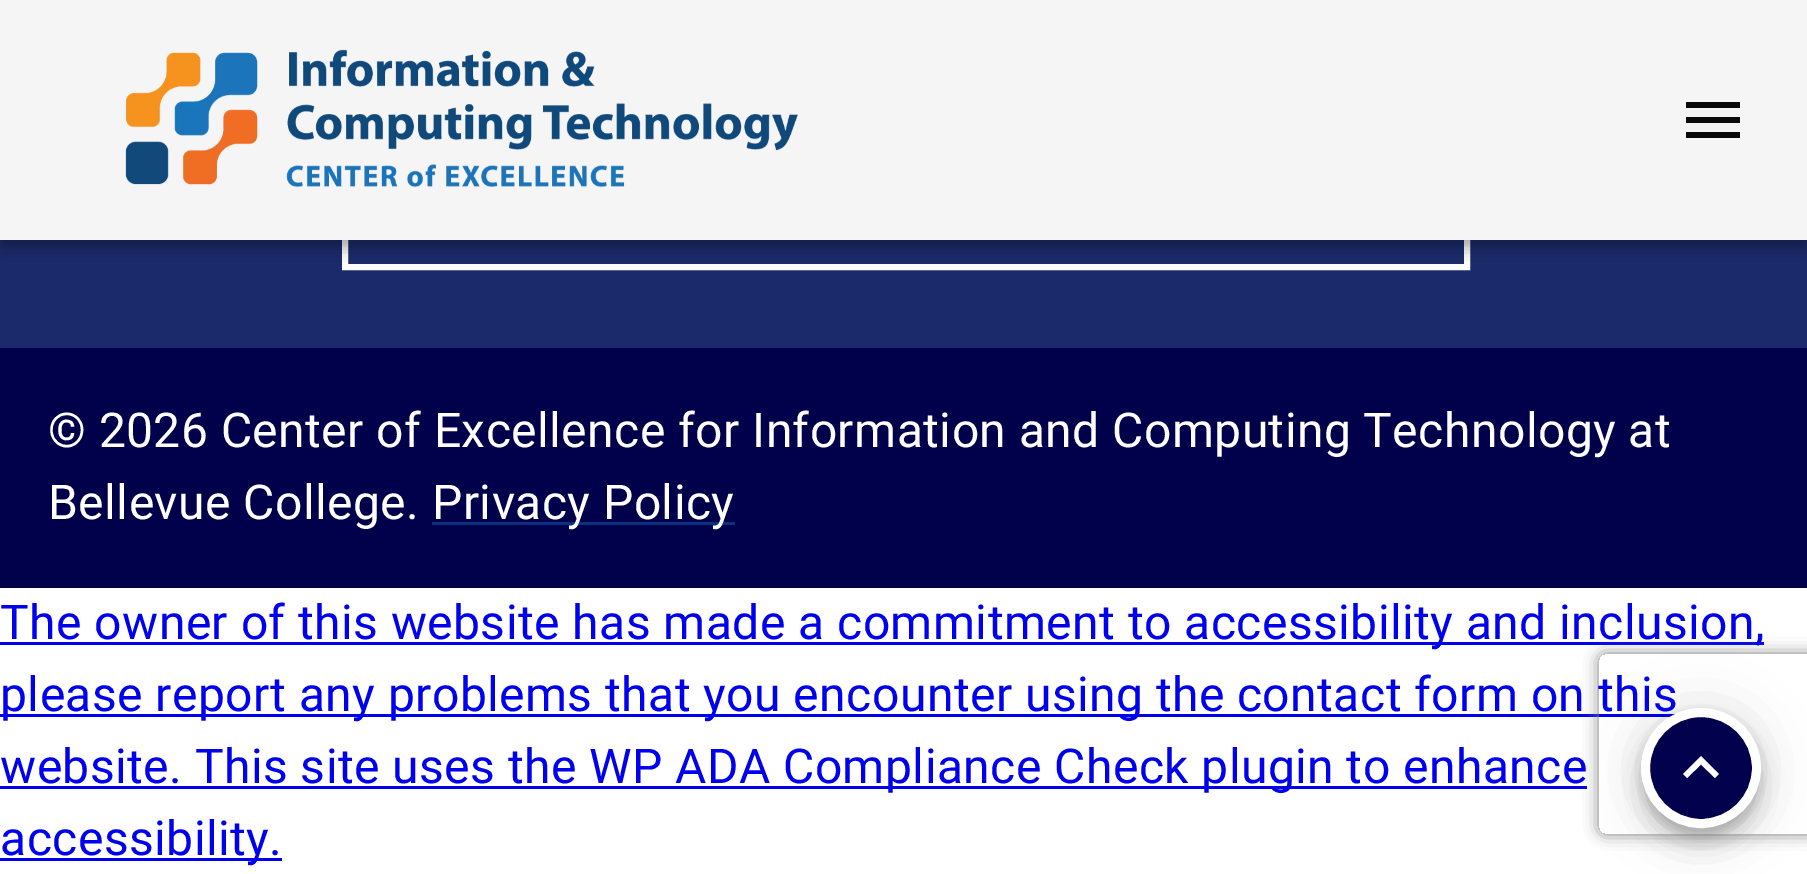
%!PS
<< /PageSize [1807 874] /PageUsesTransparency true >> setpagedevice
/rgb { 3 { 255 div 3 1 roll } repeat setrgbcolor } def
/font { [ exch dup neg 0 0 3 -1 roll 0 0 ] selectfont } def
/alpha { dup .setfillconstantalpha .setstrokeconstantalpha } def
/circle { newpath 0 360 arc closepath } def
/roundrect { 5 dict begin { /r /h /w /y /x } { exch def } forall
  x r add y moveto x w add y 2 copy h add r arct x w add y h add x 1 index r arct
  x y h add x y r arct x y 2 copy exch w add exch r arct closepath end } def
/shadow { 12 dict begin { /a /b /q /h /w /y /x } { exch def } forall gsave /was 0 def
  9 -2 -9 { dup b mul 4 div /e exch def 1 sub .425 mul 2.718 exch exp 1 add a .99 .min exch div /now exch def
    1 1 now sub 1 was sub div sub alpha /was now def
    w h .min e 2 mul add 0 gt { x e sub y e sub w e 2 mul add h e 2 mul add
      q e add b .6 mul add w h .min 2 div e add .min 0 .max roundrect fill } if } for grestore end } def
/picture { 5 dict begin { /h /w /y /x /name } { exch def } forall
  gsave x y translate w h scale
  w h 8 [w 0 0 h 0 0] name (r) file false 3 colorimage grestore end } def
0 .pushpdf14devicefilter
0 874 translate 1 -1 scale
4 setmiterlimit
255 255 255 rgb
0 0 1807 874 rectfill
26 42 107 rgb
0 240 1807 108 rectfill
255 255 255 rgb
6 setlinewidth
345 114 1122 153 rectstroke
0 0 0 rgb
0 3 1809 240 0 15 0.12 shadow
0 12 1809 240 0 7.5 0.14 shadow
3 9 1803 234 0 6 0.2 shadow
245 245 245 rgb
0 0 1807 240 rectfill
(img_01.rgb) 125 49 673 139 picture
10 10 10 rgb
1686 138 moveto 54 0 rlineto 0 -6 rlineto -54 0 rlineto closepath 1686 123 moveto 54 0 rlineto 0 -6 rlineto -54 0 rlineto closepath 1686 102 moveto 0 6 rlineto 54 0 rlineto 0 -6 rlineto closepath fill
0 0 238 rgb
0 642 1764 3 rectfill
0 714 1677 3 rectfill
0 786 1587 3 rectfill
0 0 0 rgb
1641 711 120 120 60 27 0.12 shadow
1641 726 120 120 60 15 0.14 shadow
1644 720 114 114 57 7.5 0.2 shadow
1 1 75 rgb
0 348 1807 240 rectfill
11 48 129 rgb
432 522 303 3 rectfill
0 0 238 rgb
0 858 282 3 rectfill
gsave
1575 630 moveto 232 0 rlineto 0 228 rlineto -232 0 rlineto closepath 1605 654 moveto 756 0 rlineto 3.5 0 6 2.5 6 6 rcurveto 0 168 rlineto 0 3.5 -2.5 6 -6 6 rcurveto -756 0 rlineto -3.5 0 -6 -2.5 -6 -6 rcurveto 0 -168 rlineto 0 -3.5 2.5 -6 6 -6 rcurveto closepath eoclip newpath
128 128 128 rgb
1599 654 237 180 6 7.5 1 shadow
grestore
/Roboto-Regular 48 font
255 255 255 rgb
48 447 moveto 0.45 0 (© 2026 Center of Excellence for Information and Computing Technology at) ashow
48 519 moveto 0.45 0 (Bellevue College.) ashow
432 519 moveto 0.45 0 (Privacy Policy) ashow
0 0 238 rgb
0 639 moveto 0.45 0 (The owner of this website has made a commitment to accessibility and inclusion,) ashow
0 711 moveto 0.45 0 (please report any problems that you encounter using the contact form on this) ashow
1 1 77 rgb
1701 768 55.5 circle gsave fill grestore
255 255 255 rgb
9 setlinewidth
stroke
1687 778 moveto 14 -13.5 rlineto 14 13.5 rlineto 4 -4 rlineto -18 -18 rlineto -18 18 rlineto closepath fill
0 0 238 rgb
0 783 moveto 0.45 0 (website. This site uses the WP ADA Compliance Check plugin to enhance) ashow
0 855 moveto 0.45 0 (accessibility.) ashow
.poppdf14devicefilter showpage
